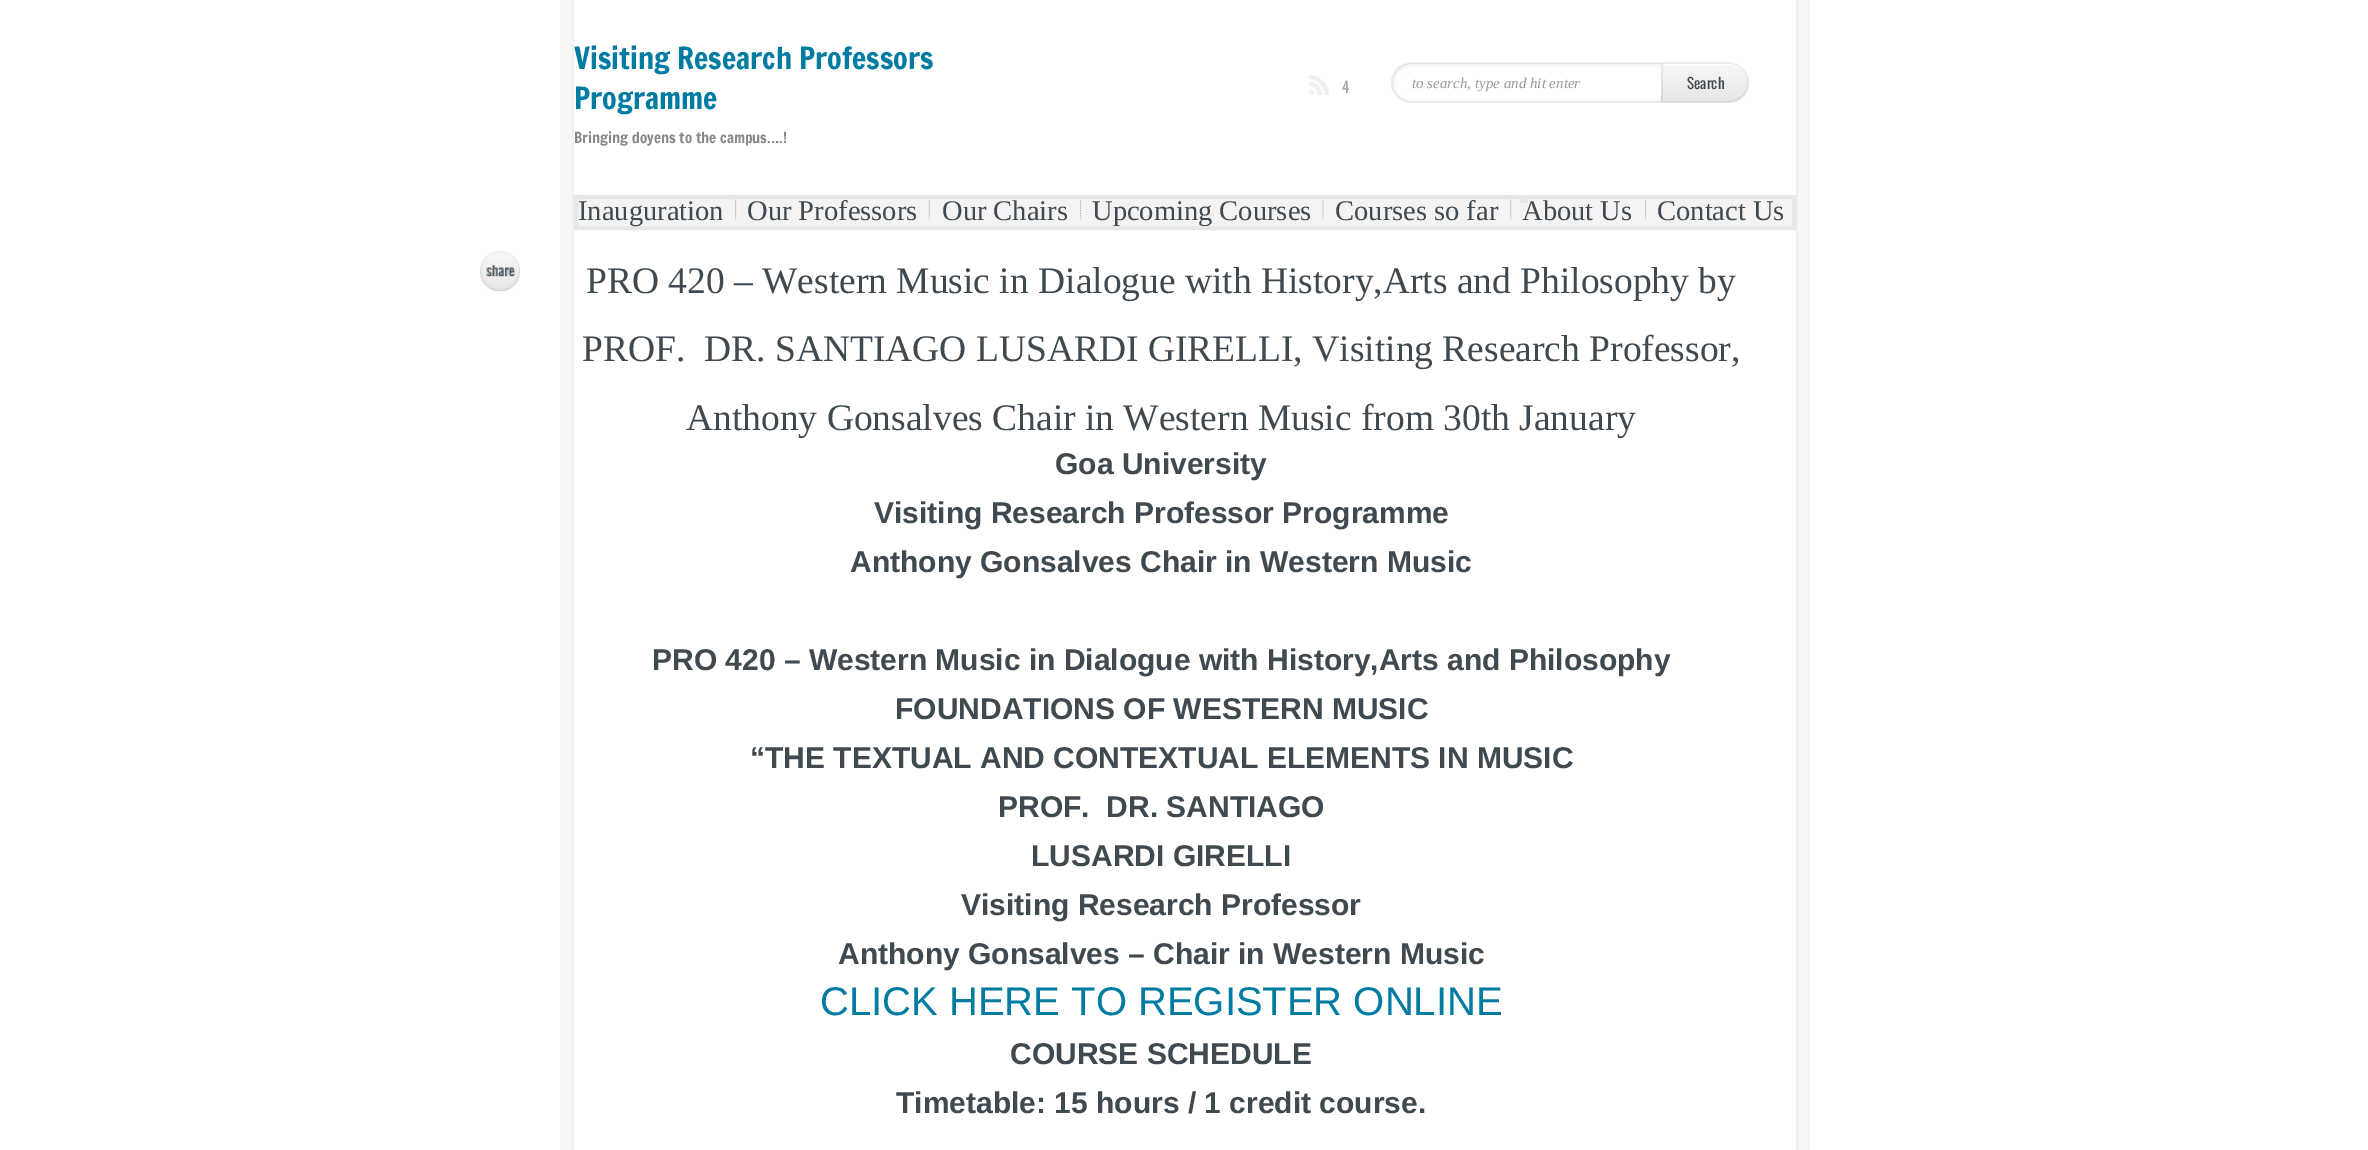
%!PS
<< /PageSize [2368 1150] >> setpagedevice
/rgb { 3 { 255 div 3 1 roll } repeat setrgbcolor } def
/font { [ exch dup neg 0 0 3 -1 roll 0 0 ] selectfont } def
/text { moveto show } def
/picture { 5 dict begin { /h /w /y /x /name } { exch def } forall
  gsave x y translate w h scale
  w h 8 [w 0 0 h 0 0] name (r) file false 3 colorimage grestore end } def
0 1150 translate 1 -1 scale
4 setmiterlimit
255 255 255 rgb
0 0 2368 1150 rectfill
(img_01.rgb) 560 0 1250 1150 picture
(img_02.rgb) 1309 75 20 20 picture
(img_03.rgb) 1391 62 271 41 picture
(img_04.rgb) 1661 62 63 41 picture
(img_05.rgb) 1723 62 26 41 picture
243 243 243 rgb
576 197 moveto 1218 0 rlineto 0 31 rlineto -1218 0 rlineto closepath gsave fill grestore
231 231 231 rgb
4 setlinewidth
stroke
1520 199 8 4 rectfill
(img_06.rgb) 735 199 3 20 picture
(img_07.rgb) 928 199 3 20 picture
(img_06.rgb) 1080 199 3 20 picture
(img_08.rgb) 1322 199 3 20 picture
(img_06.rgb) 1510 199 3 20 picture
(img_06.rgb) 1645 199 3 20 picture
(img_09.rgb) 480 251 40 41 picture
/FrancoisOne-Regular 30 font
0 124 163 rgb
(Visiting Research Professors) 574 69 text
(Programme) 574 109 text
/FrancoisOne-Regular 15 font
136 136 136 rgb
(Bringing doyens to the campus….!) 574 143 text
/Oswald-Regular 15 font
161 165 168 rgb
(4) 1342 93 text
/LiberationSerif-Italic 15 font
153 153 153 rgb
(to search, type and hit enter) 1412 88 text
/Oswald-Regular 15 font
63 73 80 rgb
(Search) 1687 89 text
/LiberationSerif-Regular 28.5 font
(Inauguration) 578 220 text
(Our Professors) 747 220 text
(Our Chairs) 942 220 text
gsave
578 199 1215 27 rectclip
(Upcoming Courses) 1092 220 text
grestore
(Courses so far) 1335 220 text
(About Us) 1522 220 text
(Contact Us) 1657 220 text
/LiberationSerif-Regular 37.5 font
(PRO 420 – Western Music in Dialogue with History,Arts and Philosophy by) 586 293 text
(PROF.  DR. SANTIAGO LUSARDI GIRELLI, Visiting Research Professor,) 582 361 text
(Anthony Gonsalves Chair in Western Music from 30th January) 686 430 text
/LiberationSans-Bold 30 font
(Goa University) 1055 474 text
(Visiting Research Professor Programme) 874 523 text
(Anthony Gonsalves Chair in Western Music) 850 572 text
(PRO 420 – Western Music in Dialogue with History,Arts and Philosophy) 652 670 text
(FOUNDATIONS OF WESTERN MUSIC) 895 719 text
(“THE TEXTUAL AND CONTEXTUAL ELEMENTS IN MUSIC) 750 768 text
(PROF.  DR. SANTIAGO) 998 817 text
(LUSARDI GIRELLI) 1031 866 text
(Visiting Research Professor) 961 915 text
(Anthony Gonsalves – Chair in Western Music) 838 964 text
/LiberationSans-Regular 40 font
0 124 163 rgb
(CLICK HERE TO REGISTER ONLINE) 820 1015 text
/LiberationSans-Bold 30 font
63 73 80 rgb
(COURSE SCHEDULE) 1010 1064 text
(Timetable: 15 hours / 1 credit course.) 896 1113 text
showpage
